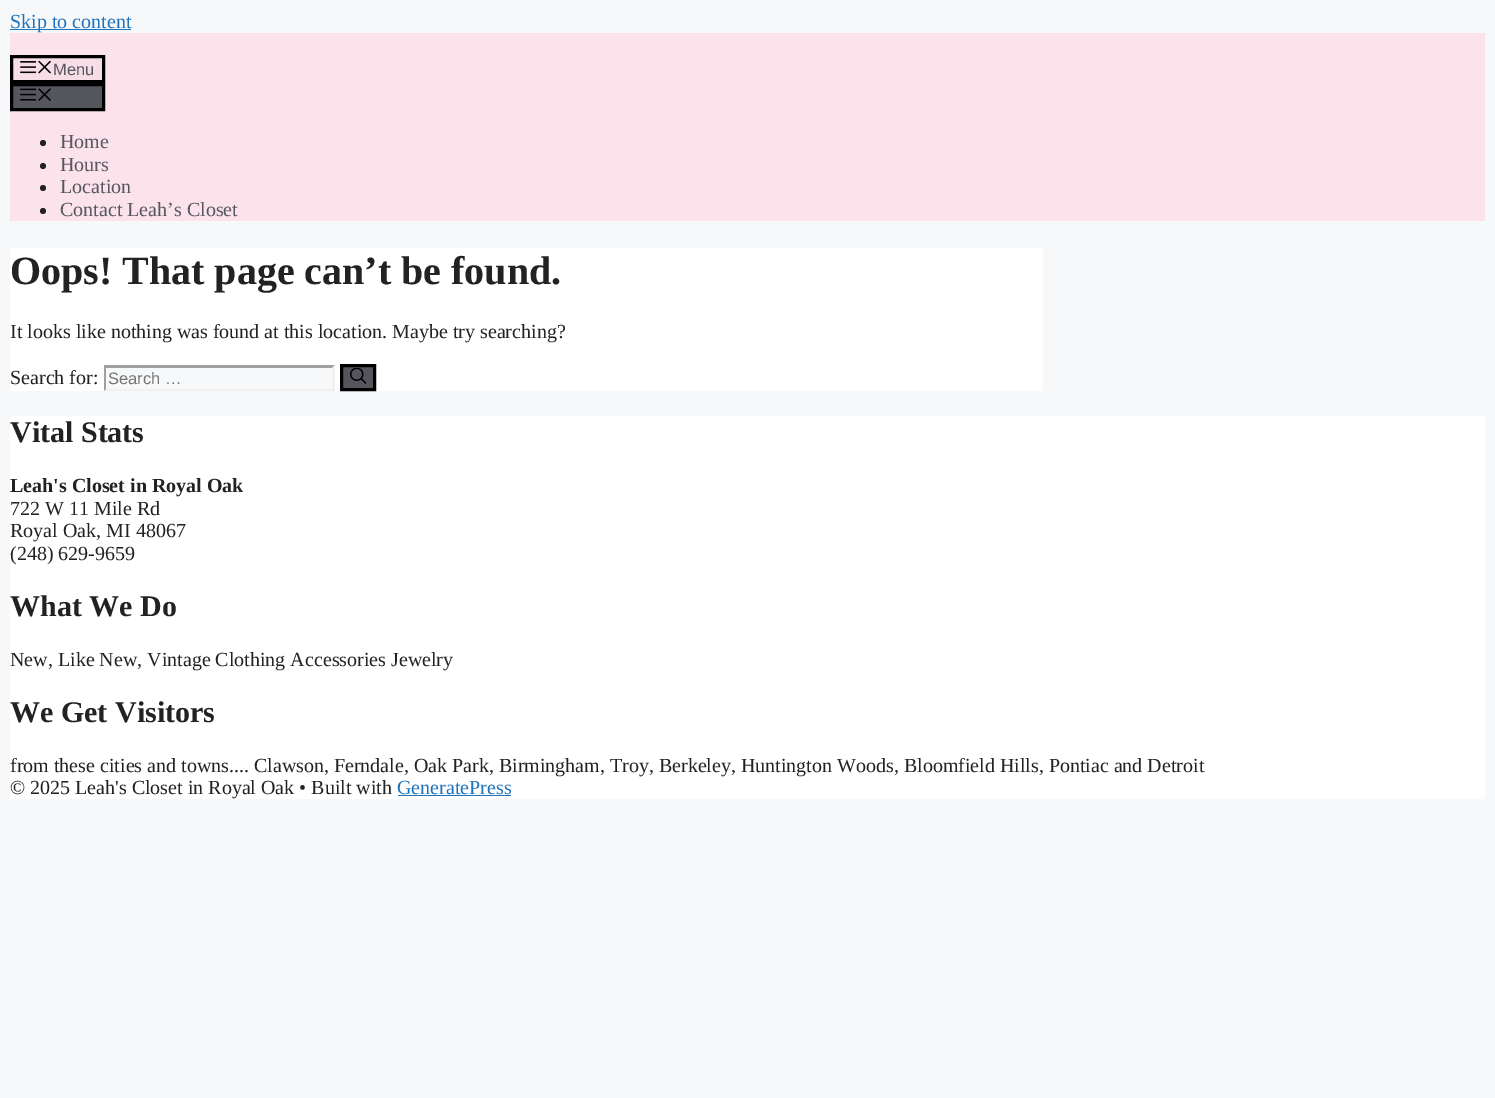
%!PS
<< /PageSize [1495 1098] >> setpagedevice
/rgb { 3 { 255 div 3 1 roll } repeat setrgbcolor } def
/font { [ exch dup neg 0 0 3 -1 roll 0 0 ] selectfont } def
/text { moveto show } def
/circle { newpath 0 360 arc closepath } def
/picture { 5 dict begin { /h /w /y /x /name } { exch def } forall
  gsave x y translate w h scale
  w h 8 [w 0 0 h 0 0] name (r) file false 3 colorimage grestore end } def
0 1098 translate 1 -1 scale
4 setmiterlimit
247 248 249 rgb
0 0 1495 1098 rectfill
30 115 190 rgb
10 29 121 1 rectfill
252 227 235 rgb
10 33 1475 188 rectfill
247 222 230 rgb
11.5 56.5 moveto 92 0 rlineto 0 25 rlineto -92 0 rlineto closepath gsave fill grestore
0 0 0 rgb
3 setlinewidth
stroke
(img_01.rgb) 20 61 16 13 picture
(img_02.rgb) 38 60 13 14 picture
85 85 94 rgb
11.5 84.5 moveto 92 0 rlineto 0 25 rlineto -92 0 rlineto closepath gsave fill grestore
0 0 0 rgb
stroke
(img_03.rgb) 20 88 16 13 picture
(img_04.rgb) 38 88 13 13 picture
34 34 34 rgb
43 143 3 circle fill
43 166 3 circle fill
43 188 3 circle fill
43 211 3 circle fill
255 255 255 rgb
10 248 1033 143 rectfill
247 248 249 rgb
104 365 231 26 rectfill
160 160 160 rgb
104 365 moveto 231 0 rlineto -3 3 rlineto -226 0 rlineto closepath fill
240 240 240 rgb
335 365 moveto 0 26 rlineto -2.5 -2 rlineto 0 -21.5 rlineto closepath fill
335 391 moveto -231 0 rlineto 2 -2 rlineto 226 0 rlineto closepath fill
160 160 160 rgb
104 391 moveto 0 -26 rlineto 2 2.5 rlineto 0 21.5 rlineto closepath fill
85 85 94 rgb
341.5 365.5 moveto 33 0 rlineto 0 24 rlineto -33 0 rlineto closepath gsave fill grestore
0 0 0 rgb
stroke
(img_05.rgb) 350 368 16 16 picture
255 255 255 rgb
10 416 1475 383 rectfill
30 115 190 rgb
398 795 113 1 rectfill
/LiberationSerif-Regular 20 font
(Skip to content) 10 28 text
/LiberationSans-Regular 16.5 font
87 87 96 rgb
(Menu) 53 75 text
/LiberationSerif-Regular 20 font
(Home) 60 148 text
(Hours) 60 171 text
(Location) 60 193 text
(Contact Leah’s Closet) 60 216 text
/LiberationSerif-Bold 40 font
34 34 34 rgb
(Oops! That page can’t be found.) 10 284 text
/LiberationSerif-Regular 20 font
(It looks like nothing was found at this location. Maybe try searching?) 10 338 text
(Search for:) 10 384 text
/LiberationSans-Regular 16.5 font
117 117 117 rgb
(Search …) 108 384 text
/LiberationSerif-Bold 30 font
34 34 34 rgb
(Vital Stats) 10 442 text
/LiberationSerif-Bold 20 font
(Leah's Closet in Royal Oak) 10 492 text
/LiberationSerif-Regular 20 font
(722 W 11 Mile Rd) 10 515 text
(Royal Oak, MI 48067) 10 537 text
(\(248\) 629-9659) 10 560 text
/LiberationSerif-Bold 30 font
(What We Do) 10 616 text
/LiberationSerif-Regular 20 font
(New, Like New, Vintage Clothing Accessories Jewelry) 10 666 text
/LiberationSerif-Bold 30 font
(We Get Visitors) 10 722 text
/LiberationSerif-Regular 20 font
(from these cities and towns.... Clawson, Ferndale, Oak Park, Birmingham, Troy, Berkeley, Huntington Woods, Bloomfield Hills, Pontiac and Detroit) 10 772 text
(© 2025 Leah's Closet in Royal Oak • Built with) 10 794 text
30 115 190 rgb
(GeneratePress) 397 794 text
showpage
